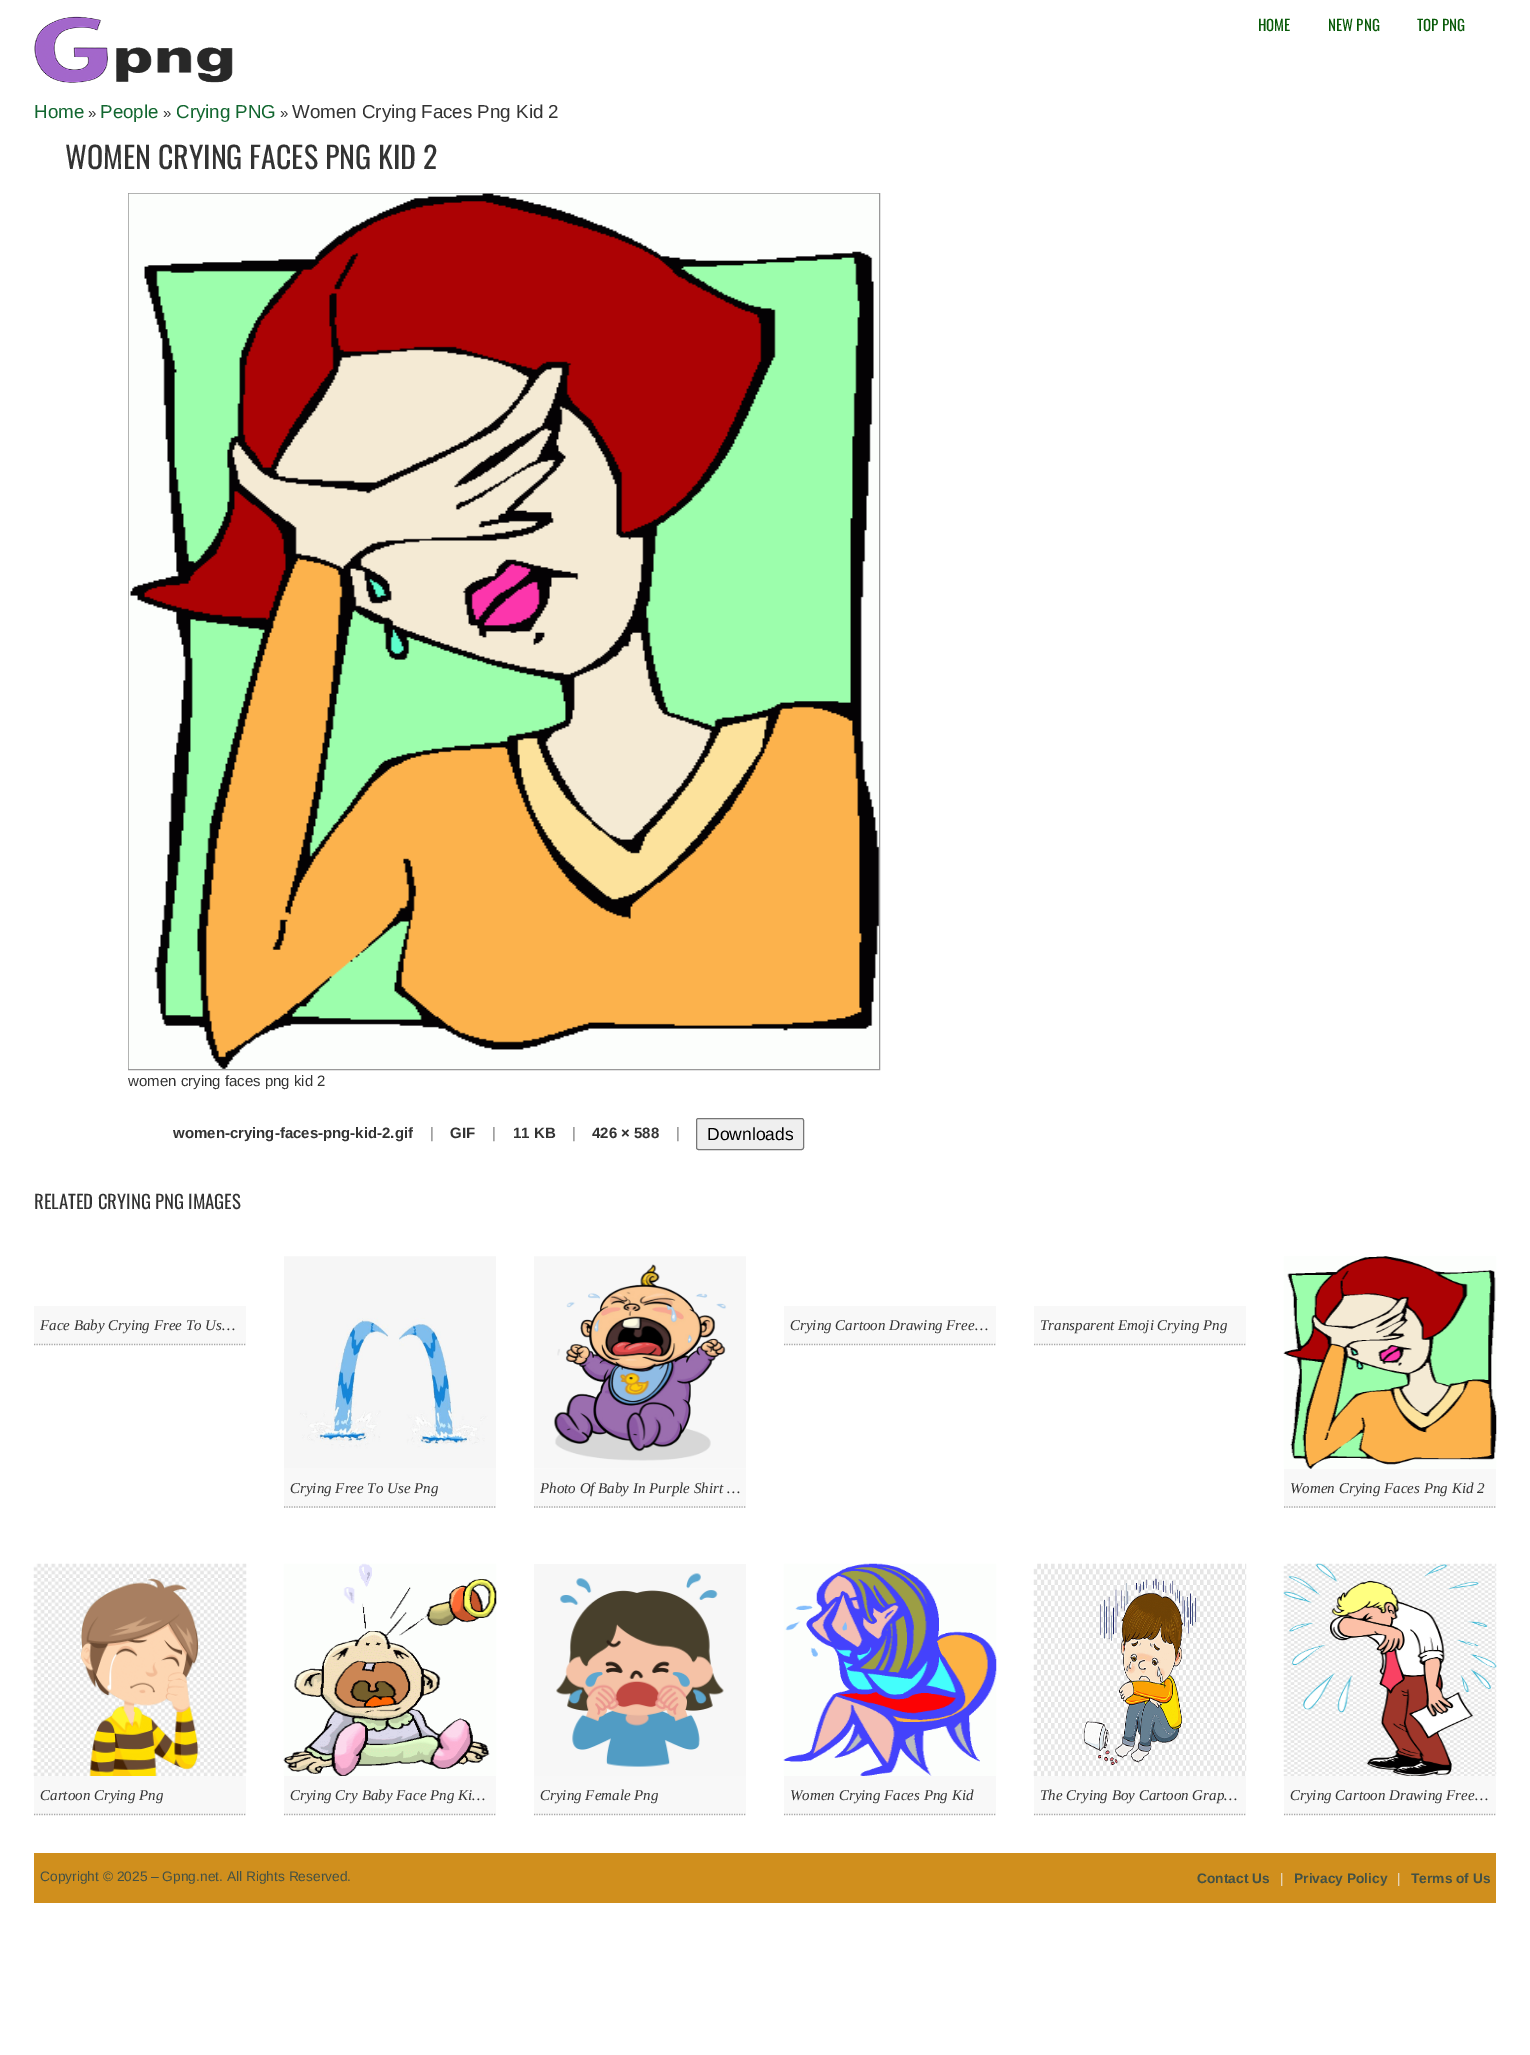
%!PS
<< /PageSize [1530 2055] >> setpagedevice
/rgb { 3 { 255 div 3 1 roll } repeat setrgbcolor } def
/font { [ exch dup neg 0 0 3 -1 roll 0 0 ] selectfont } def
/text { moveto show } def
/roundrect { 5 dict begin { /r /h /w /y /x } { exch def } forall
  x r add y moveto x w add y 2 copy h add r arct x w add y h add x 1 index r arct
  x y h add x y r arct x y 2 copy exch w add exch r arct closepath end } def
/picture { 5 dict begin { /h /w /y /x /name } { exch def } forall
  gsave x y translate w h scale
  w h 8 [w 0 0 h 0 0] name (r) file false 3 colorimage grestore end } def
0 2055 translate 1 -1 scale
4 setmiterlimit
255 255 255 rgb
0 0 1530 2055 rectfill
(img_01.rgb) 34 16 199 67 picture
153 153 153 rgb
128.5 193.5 751 876 rectstroke
(img_02.rgb) 128 193 751 876 picture
239 239 239 rgb
696.5 1118.5 107 31 2 roundrect gsave fill grestore
118 118 118 rgb
stroke
248 248 248 rgb
34 1306 212 39 rectfill
169 169 169 rgb
1.2 setlinewidth
[1.25 1.25] 0 setdash
34 1344.5 moveto 212 0 rlineto stroke
248 248 248 rgb
784 1306 212 39 rectfill
169 169 169 rgb
784 1344.5 moveto 212 0 rlineto stroke
248 248 248 rgb
1034 1306 212 39 rectfill
169 169 169 rgb
1034 1344.5 moveto 212 0 rlineto stroke
(img_03.rgb) 284 1256 212 213 picture
248 248 248 rgb
284 1469 212 39 rectfill
169 169 169 rgb
284 1507 moveto 212 0 rlineto stroke
(img_04.rgb) 534 1256 212 213 picture
248 248 248 rgb
534 1469 212 39 rectfill
169 169 169 rgb
534 1507 moveto 212 0 rlineto stroke
(img_05.rgb) 1283 1256 214 213 picture
248 248 248 rgb
1284 1469 212 39 rectfill
169 169 169 rgb
1284 1507 moveto 212 0 rlineto stroke
(img_06.rgb) 33 1563 214 214 picture
248 248 248 rgb
34 1776 212 39 rectfill
169 169 169 rgb
34 1814.5 moveto 212 0 rlineto stroke
(img_07.rgb) 283 1563 214 214 picture
248 248 248 rgb
284 1776 212 39 rectfill
169 169 169 rgb
284 1814.5 moveto 212 0 rlineto stroke
(img_08.rgb) 534 1564 212 212 picture
248 248 248 rgb
534 1776 212 39 rectfill
169 169 169 rgb
534 1814.5 moveto 212 0 rlineto stroke
(img_09.rgb) 783 1563 214 214 picture
248 248 248 rgb
784 1776 212 39 rectfill
169 169 169 rgb
784 1814.5 moveto 212 0 rlineto stroke
(img_10.rgb) 1033 1563 214 214 picture
248 248 248 rgb
1034 1776 212 39 rectfill
169 169 169 rgb
1034 1814.5 moveto 212 0 rlineto stroke
(img_11.rgb) 1283 1563 214 214 picture
248 248 248 rgb
1284 1776 212 39 rectfill
169 169 169 rgb
1284 1814.5 moveto 212 0 rlineto stroke
208 143 29 rgb
34 1853 1462 50 rectfill
/Oswald-Regular 15 font
8 90 8 rgb
(HOME) 1258 31 text
(NEW PNG) 1328 31 text
(TOP PNG) 1417 31 text
/LiberationSans-Regular 18.75 font
18 103 48 rgb
(Home) 34 118 text
/LiberationSans-Regular 15 font
51 51 51 rgb
(») 88 118 text
/LiberationSans-Regular 18.75 font
18 103 48 rgb
(People) 100 118 text
/LiberationSans-Regular 15 font
51 51 51 rgb
(») 163 118 text
/LiberationSans-Regular 18.75 font
18 103 48 rgb
(Crying PNG) 176 118 text
/LiberationSans-Regular 15 font
51 51 51 rgb
(») 280 118 text
/LiberationSans-Regular 18.75 font
(Women Crying Faces Png Kid 2) 292 118 text
/Oswald-Regular 30 font
(WOMEN CRYING FACES PNG KID 2) 65 169 text
/LiberationSans-Regular 15 font
(women crying faces png kid 2) 128 1086 text
/LiberationSans-Bold 15 font
(women-crying-faces-png-kid-2.gif) 173 1138 text
/LiberationSans-Regular 15 font
128 128 128 rgb
(|) 430 1138 text
/LiberationSans-Bold 15 font
51 51 51 rgb
(GIF) 450 1138 text
/LiberationSans-Regular 15 font
128 128 128 rgb
(|) 492 1138 text
/LiberationSans-Bold 15 font
51 51 51 rgb
(11 KB) 513 1138 text
/LiberationSans-Regular 15 font
128 128 128 rgb
(|) 572 1138 text
/LiberationSans-Bold 15 font
51 51 51 rgb
(426 × 588) 592 1138 text
/LiberationSans-Regular 15 font
128 128 128 rgb
(|) 676 1138 text
/LiberationSans-Regular 17.5 font
0 0 0 rgb
(Downloads) 707 1140 text
/Oswald-Regular 18.75 font
51 51 51 rgb
(RELATED CRYING PNG IMAGES) 34 1209 text
/LiberationSerif-Italic 15 font
(Face Baby Crying Free To Us…) 40 1330 text
(Crying Cartoon Drawing Free…) 790 1330 text
(Transparent Emoji Crying Png) 1040 1330 text
(Crying Free To Use Png) 290 1493 text
(Photo Of Baby In Purple Shirt …) 540 1493 text
(Women Crying Faces Png Kid 2) 1290 1493 text
(Cartoon Crying Png) 40 1800 text
(Crying Cry Baby Face Png Ki…) 290 1800 text
(Crying Female Png) 540 1800 text
(Women Crying Faces Png Kid) 790 1800 text
(The Crying Boy Cartoon Grap…) 1040 1800 text
(Crying Cartoon Drawing Free…) 1290 1800 text
/LiberationSans-Regular 13.75 font
67 81 69 rgb
(Copyright © 2025 – Gpng.net. All Rights Reserved.) 40 1881 text
/LiberationSans-Bold 13.75 font
(Contact Us) 1197 1883 text
/LiberationSans-Regular 13.75 font
238 238 238 rgb
(|) 1280 1883 text
/LiberationSans-Bold 13.75 font
67 81 69 rgb
(Privacy Policy) 1294 1883 text
/LiberationSans-Regular 13.75 font
238 238 238 rgb
(|) 1397 1883 text
/LiberationSans-Bold 13.75 font
67 81 69 rgb
(Terms of Us) 1411 1883 text
showpage
